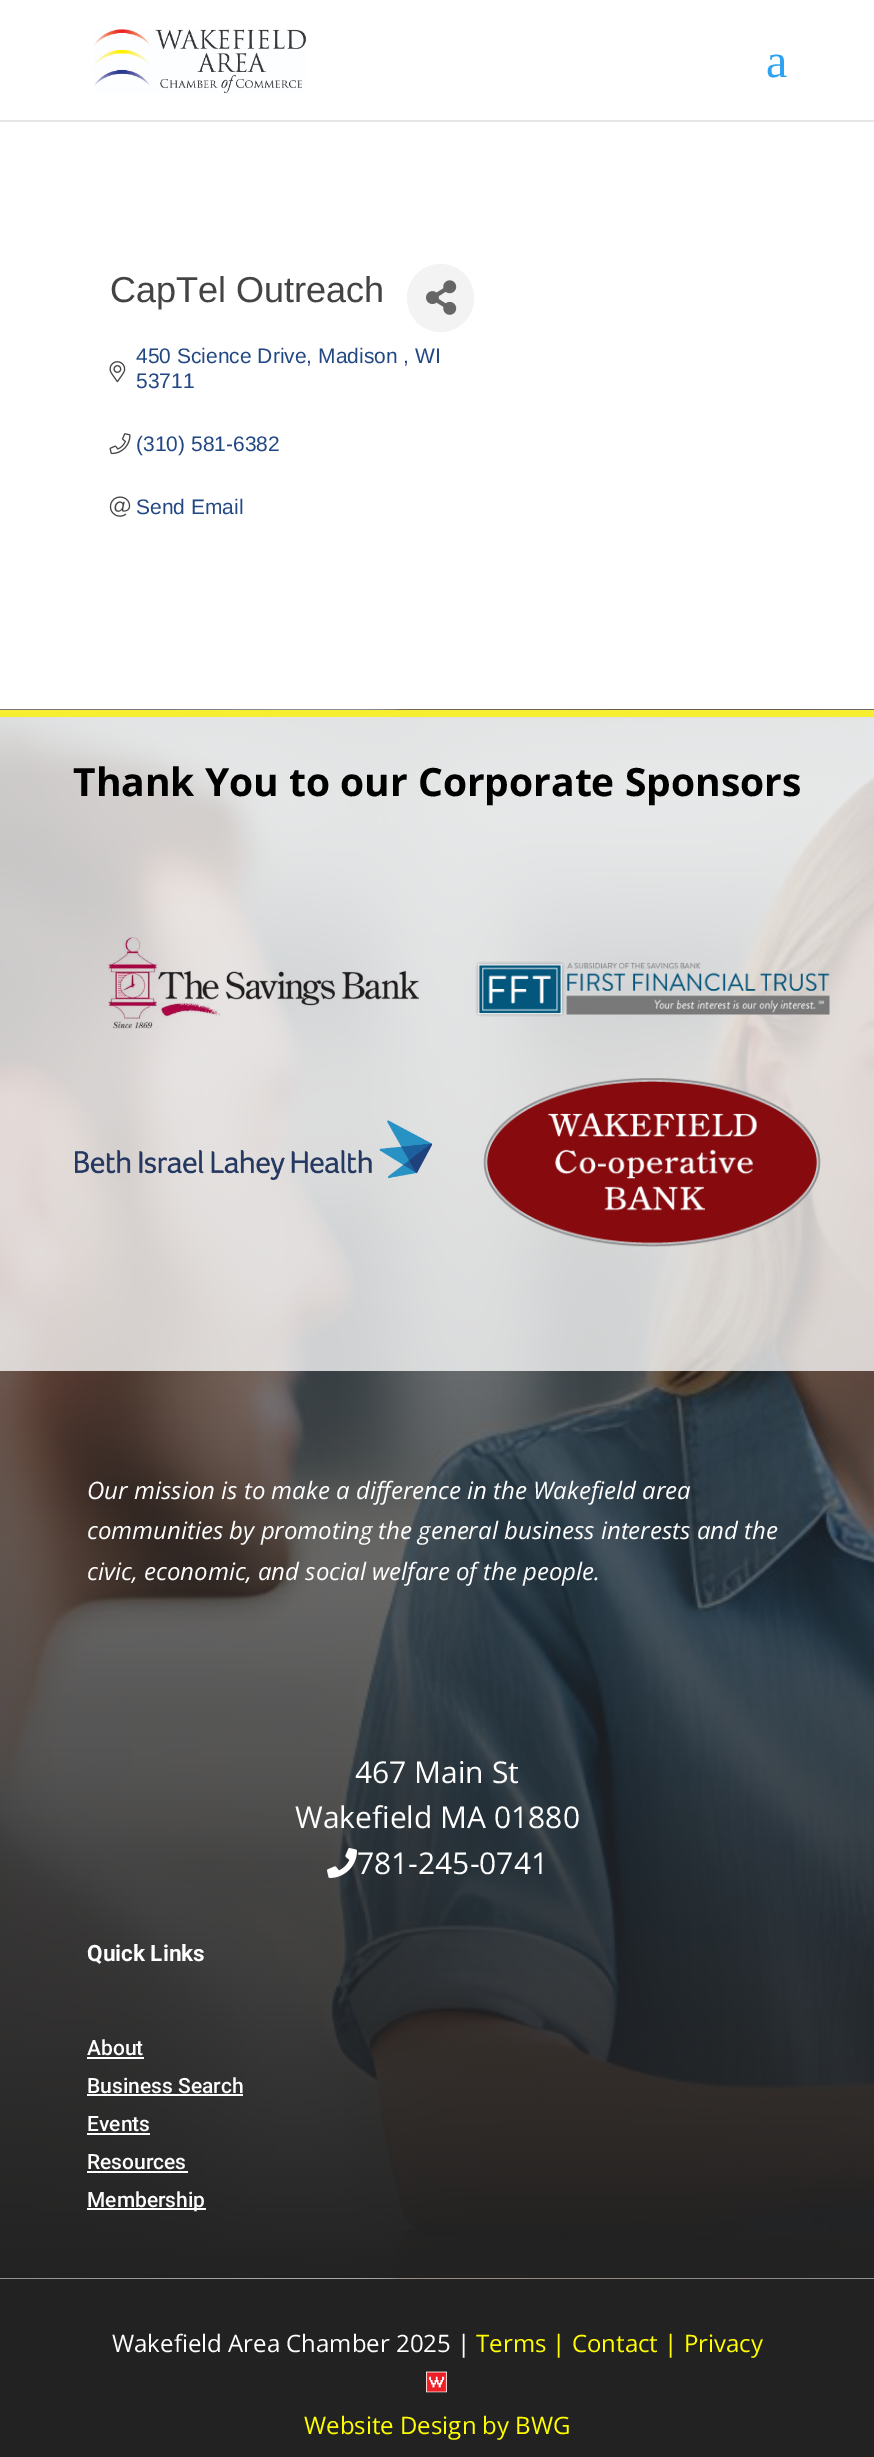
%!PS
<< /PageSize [874 2457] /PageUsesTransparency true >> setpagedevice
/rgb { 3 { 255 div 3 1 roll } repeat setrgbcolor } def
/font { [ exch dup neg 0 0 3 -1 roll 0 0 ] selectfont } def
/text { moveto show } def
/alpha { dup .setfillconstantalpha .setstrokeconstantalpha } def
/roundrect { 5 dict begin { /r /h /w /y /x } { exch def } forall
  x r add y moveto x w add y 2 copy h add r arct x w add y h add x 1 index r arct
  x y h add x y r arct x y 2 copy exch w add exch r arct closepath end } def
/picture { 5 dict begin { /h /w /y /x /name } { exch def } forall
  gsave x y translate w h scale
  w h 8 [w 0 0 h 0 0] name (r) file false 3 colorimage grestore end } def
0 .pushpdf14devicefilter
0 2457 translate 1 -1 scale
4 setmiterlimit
255 255 255 rgb
0 0 874 2457 rectfill
230 230 230 rgb
0 120 moveto 0 2 rlineto 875 0 rlineto 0 -120 rlineto -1 0 rlineto 0 118 rlineto closepath fill
(img_01.rgb) 93 29 214 64 picture
243 243 243 rgb
407 264 67 68 33.5 roundrect fill
(img_02.rgb) 426 280 31 35 picture
(img_03.rgb) 109 361 17 22 picture
(img_04.rgb) 109 433 22 22 picture
(img_05.rgb) 109 496 22 21 picture
(img_06.rgb) 0 709 874 1570 picture
245 238 49 rgb
0 710 874 7 rectfill
0.76 alpha
255 255 255 rgb
0 717 874 144 rectfill
0 861 874 510 rectfill
1 alpha
(img_07.rgb) 108 937 313 92 picture
(img_08.rgb) 475 961 355 56 picture
(img_09.rgb) 75 1120 357 61 picture
(img_10.rgb) 483 1078 338 169 picture
(img_11.rgb) 327 1848 30 30 picture
87 2057 57 2 rectfill
87 2094 156 2 rectfill
87 2133 63 2 rectfill
87 2171 101 2 rectfill
87 2208 119 2 rectfill
34 34 34 rgb
0 2279 874 178 rectfill
(img_12.rgb) 426 2371 21 22 picture
/LiberationSerif-Regular 48 font
46 163 242 rgb
(a) 766 77 text
/LiberationSans-Regular 36 font
68 68 68 rgb
(CapTel Outreach) 110 302 text
/LiberationSans-Regular 21 font
34 72 132 rgb
(450 Science Drive, Madison , WI) 136 363 text
(53711) 136 388 text
(\(310\) 581-6382) 136 451 text
(Send Email) 136 514 text
/OpenSans-Bold 39 font
0 0 0 rgb
(Thank You to our Corporate Sponsors) 73 796 text
/OpenSans-Italic 24 font
255 255 255 rgb
(Our mission is to make a difference in the Wakefield area) 87 1499 text
(communities by promoting the general business interests and the) 87 1539 text
(civic, economic, and social welfare of the people.) 87 1580 text
/OpenSans-Regular 30 font
(467 Main St) 355 1783 text
(Wakefield MA 01880) 295 1828 text
(781-245-0741) 357 1874 text
/Roboto-Bold 22.5 font
(Quick Links) 87 1961 text
/Roboto-Medium 21 font
(About) 87 2055 text
(Business Search) 87 2093 text
(Events) 87 2131 text
(Resources) 87 2169 text
(Membership) 87 2207 text
/OpenSans-Regular 24 font
(Wakefield Area Chamber 2025 |) 112 2352 text
255 255 0 rgb
(Terms | Contact | Privacy) 476 2352 text
(Website Design by BWG) 304 2434 text
.poppdf14devicefilter showpage
